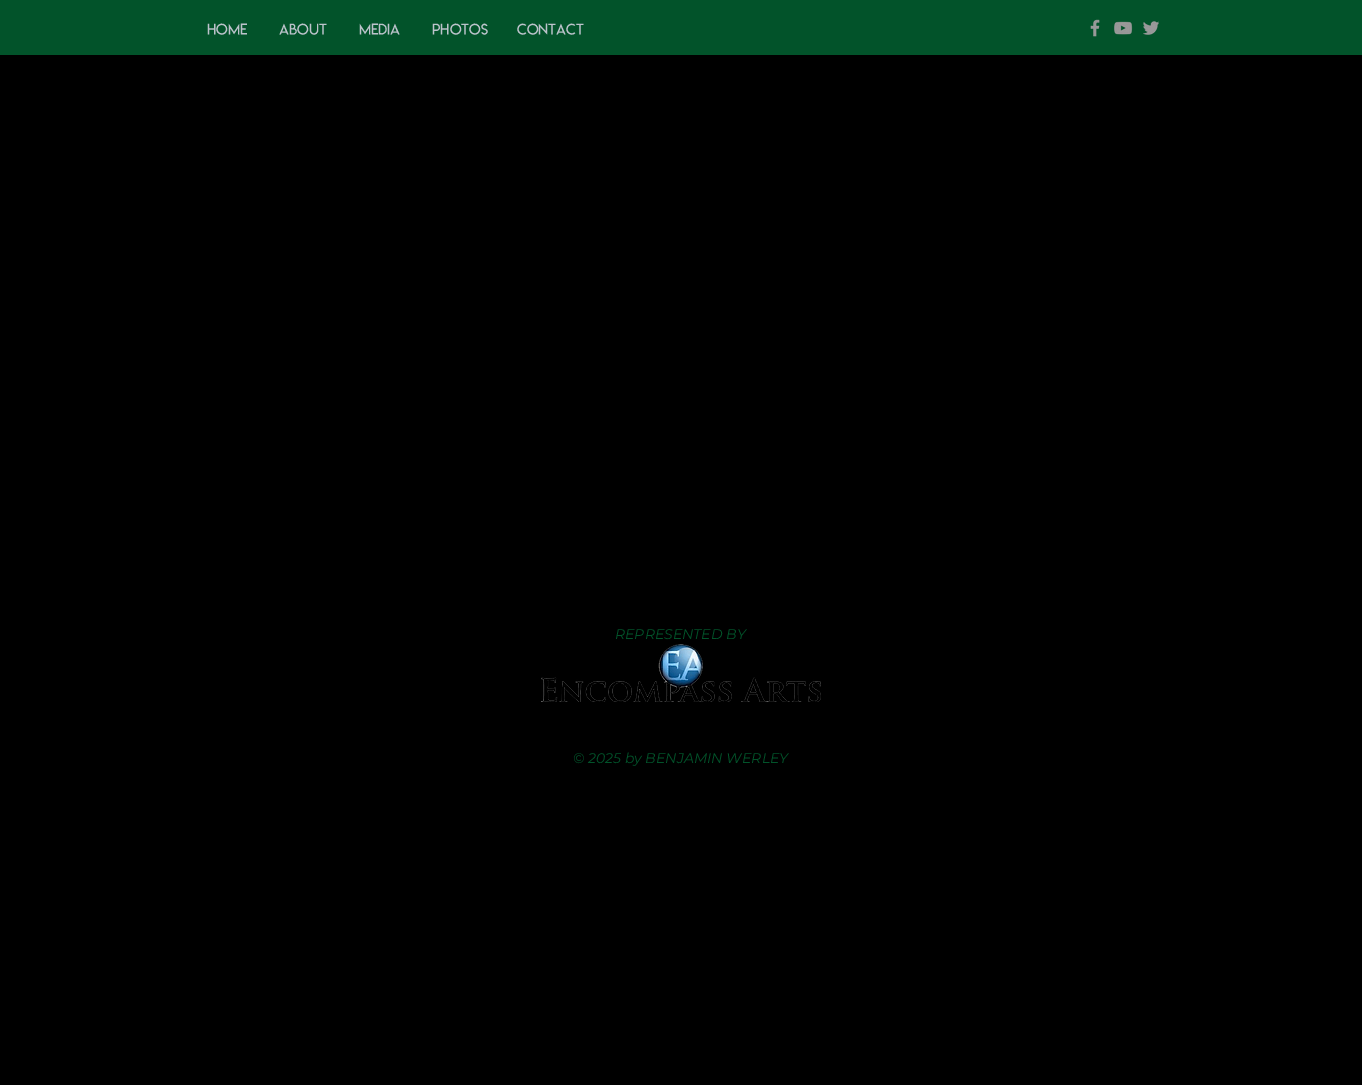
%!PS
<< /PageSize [1362 1085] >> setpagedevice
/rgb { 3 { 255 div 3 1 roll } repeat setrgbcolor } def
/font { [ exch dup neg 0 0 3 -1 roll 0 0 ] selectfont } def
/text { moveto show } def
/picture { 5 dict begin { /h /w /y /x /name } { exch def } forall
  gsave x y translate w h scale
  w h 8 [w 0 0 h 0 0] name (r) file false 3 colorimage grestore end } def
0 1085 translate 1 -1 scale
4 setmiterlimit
0 0 0 rgb
0 0 1362 1085 rectfill
2 83 42 rgb
0 0 1362 55 rectfill
(img_01.rgb) 1090 19 10 18 picture
(img_02.rgb) 1114 21 19 14 picture
(img_03.rgb) 1143 21 16 14 picture
(img_04.rgb) 541 644 280 58 picture
/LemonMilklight-Light 15 font
188 195 203 rgb
(HOME) 207 35 text
(ABOUT) 279 35 text
(MEDIA) 359 35 text
(PHOTOS) 432 35 text
(CONTACT) 517 35 text
/Montserrat-Italic 14 font
2 83 42 rgb
(REPRESENTED BY) 615 639 text
(© 2025 by BENJAMIN WERLEY) 573 763 text
showpage
